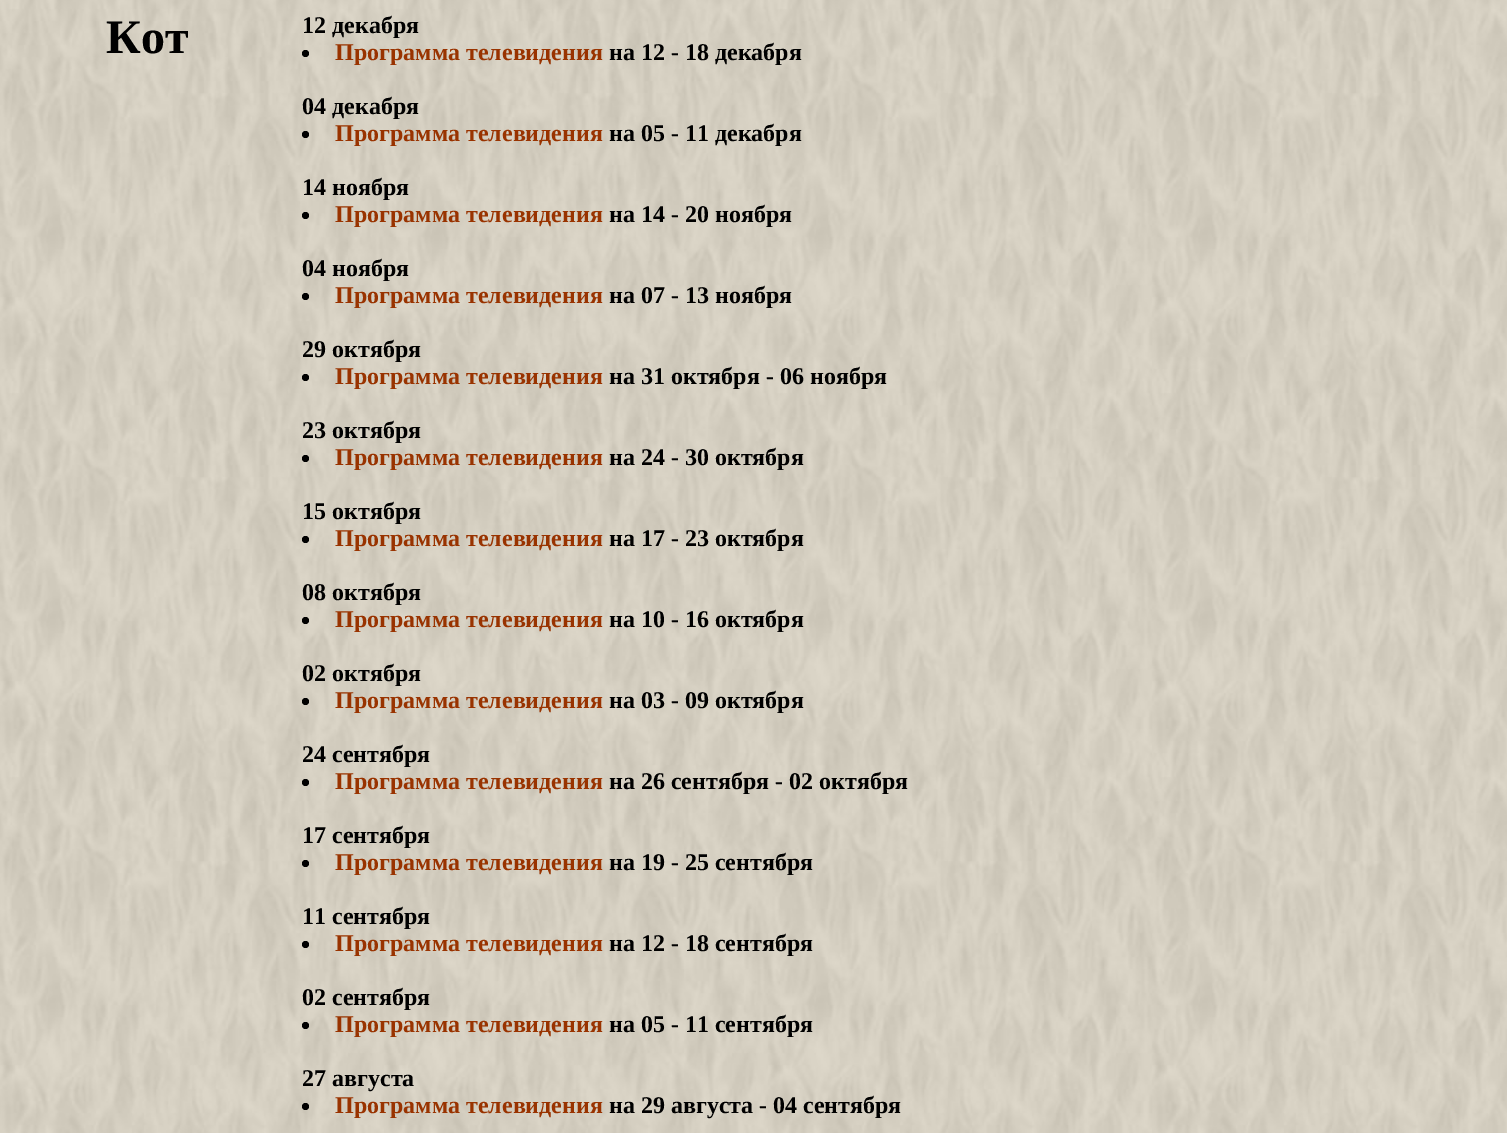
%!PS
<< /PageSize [1507 1133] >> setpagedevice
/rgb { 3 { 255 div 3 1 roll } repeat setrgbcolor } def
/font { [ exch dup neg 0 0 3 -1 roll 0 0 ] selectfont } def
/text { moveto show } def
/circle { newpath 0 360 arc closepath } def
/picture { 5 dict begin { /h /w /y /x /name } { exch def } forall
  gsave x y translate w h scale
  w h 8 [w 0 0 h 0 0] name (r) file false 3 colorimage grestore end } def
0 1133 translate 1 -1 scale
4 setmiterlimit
255 255 255 rgb
0 0 1507 1133 rectfill
(img_01.rgb) 0 0 1507 1133 picture
0 0 0 rgb
305.5 53.5 3.5 circle fill
305.5 134.5 3.5 circle fill
305.5 215.5 3.5 circle fill
305.5 296.5 3.5 circle fill
305.5 377.5 3.5 circle fill
305.5 458.5 3.5 circle fill
305.5 539.5 3.5 circle fill
305.5 620.5 3.5 circle fill
305.5 701.5 3.5 circle fill
305.5 782.5 3.5 circle fill
305.5 863.5 3.5 circle fill
305.5 944.5 3.5 circle fill
305.5 1025.5 3.5 circle fill
305.5 1106.5 3.5 circle fill
/LiberationSerif-Bold 48 font
(Кот) 106 53 text
/LiberationSerif-Bold 24 font
(12 декабря) 302 33 text
153 51 0 rgb
(Программа телевидения) 335 60 text
0 0 0 rgb
(на 12 - 18 декабря) 609 60 text
(04 декабря) 302 114 text
153 51 0 rgb
(Программа телевидения) 335 141 text
0 0 0 rgb
(на 05 - 11 декабря) 609 141 text
(14 ноября) 302 195 text
153 51 0 rgb
(Программа телевидения) 335 222 text
0 0 0 rgb
(на 14 - 20 ноября) 609 222 text
(04 ноября) 302 276 text
153 51 0 rgb
(Программа телевидения) 335 303 text
0 0 0 rgb
(на 07 - 13 ноября) 609 303 text
(29 октября) 302 357 text
153 51 0 rgb
(Программа телевидения) 335 384 text
0 0 0 rgb
(на 31 октября - 06 ноября) 609 384 text
(23 октября) 302 438 text
153 51 0 rgb
(Программа телевидения) 335 465 text
0 0 0 rgb
(на 24 - 30 октября) 609 465 text
(15 октября) 302 519 text
153 51 0 rgb
(Программа телевидения) 335 546 text
0 0 0 rgb
(на 17 - 23 октября) 609 546 text
(08 октября) 302 600 text
153 51 0 rgb
(Программа телевидения) 335 627 text
0 0 0 rgb
(на 10 - 16 октября) 609 627 text
(02 октября) 302 681 text
153 51 0 rgb
(Программа телевидения) 335 708 text
0 0 0 rgb
(на 03 - 09 октября) 609 708 text
(24 сентября) 302 762 text
153 51 0 rgb
(Программа телевидения) 335 789 text
0 0 0 rgb
(на 26 сентября - 02 октября) 609 789 text
(17 сентября) 302 843 text
153 51 0 rgb
(Программа телевидения) 335 870 text
0 0 0 rgb
(на 19 - 25 сентября) 609 870 text
(11 сентября) 302 924 text
153 51 0 rgb
(Программа телевидения) 335 951 text
0 0 0 rgb
(на 12 - 18 сентября) 609 951 text
(02 сентября) 302 1005 text
153 51 0 rgb
(Программа телевидения) 335 1032 text
0 0 0 rgb
(на 05 - 11 сентября) 609 1032 text
(27 августа) 302 1086 text
153 51 0 rgb
(Программа телевидения) 335 1113 text
0 0 0 rgb
(на 29 августа - 04 сентября) 609 1113 text
showpage
